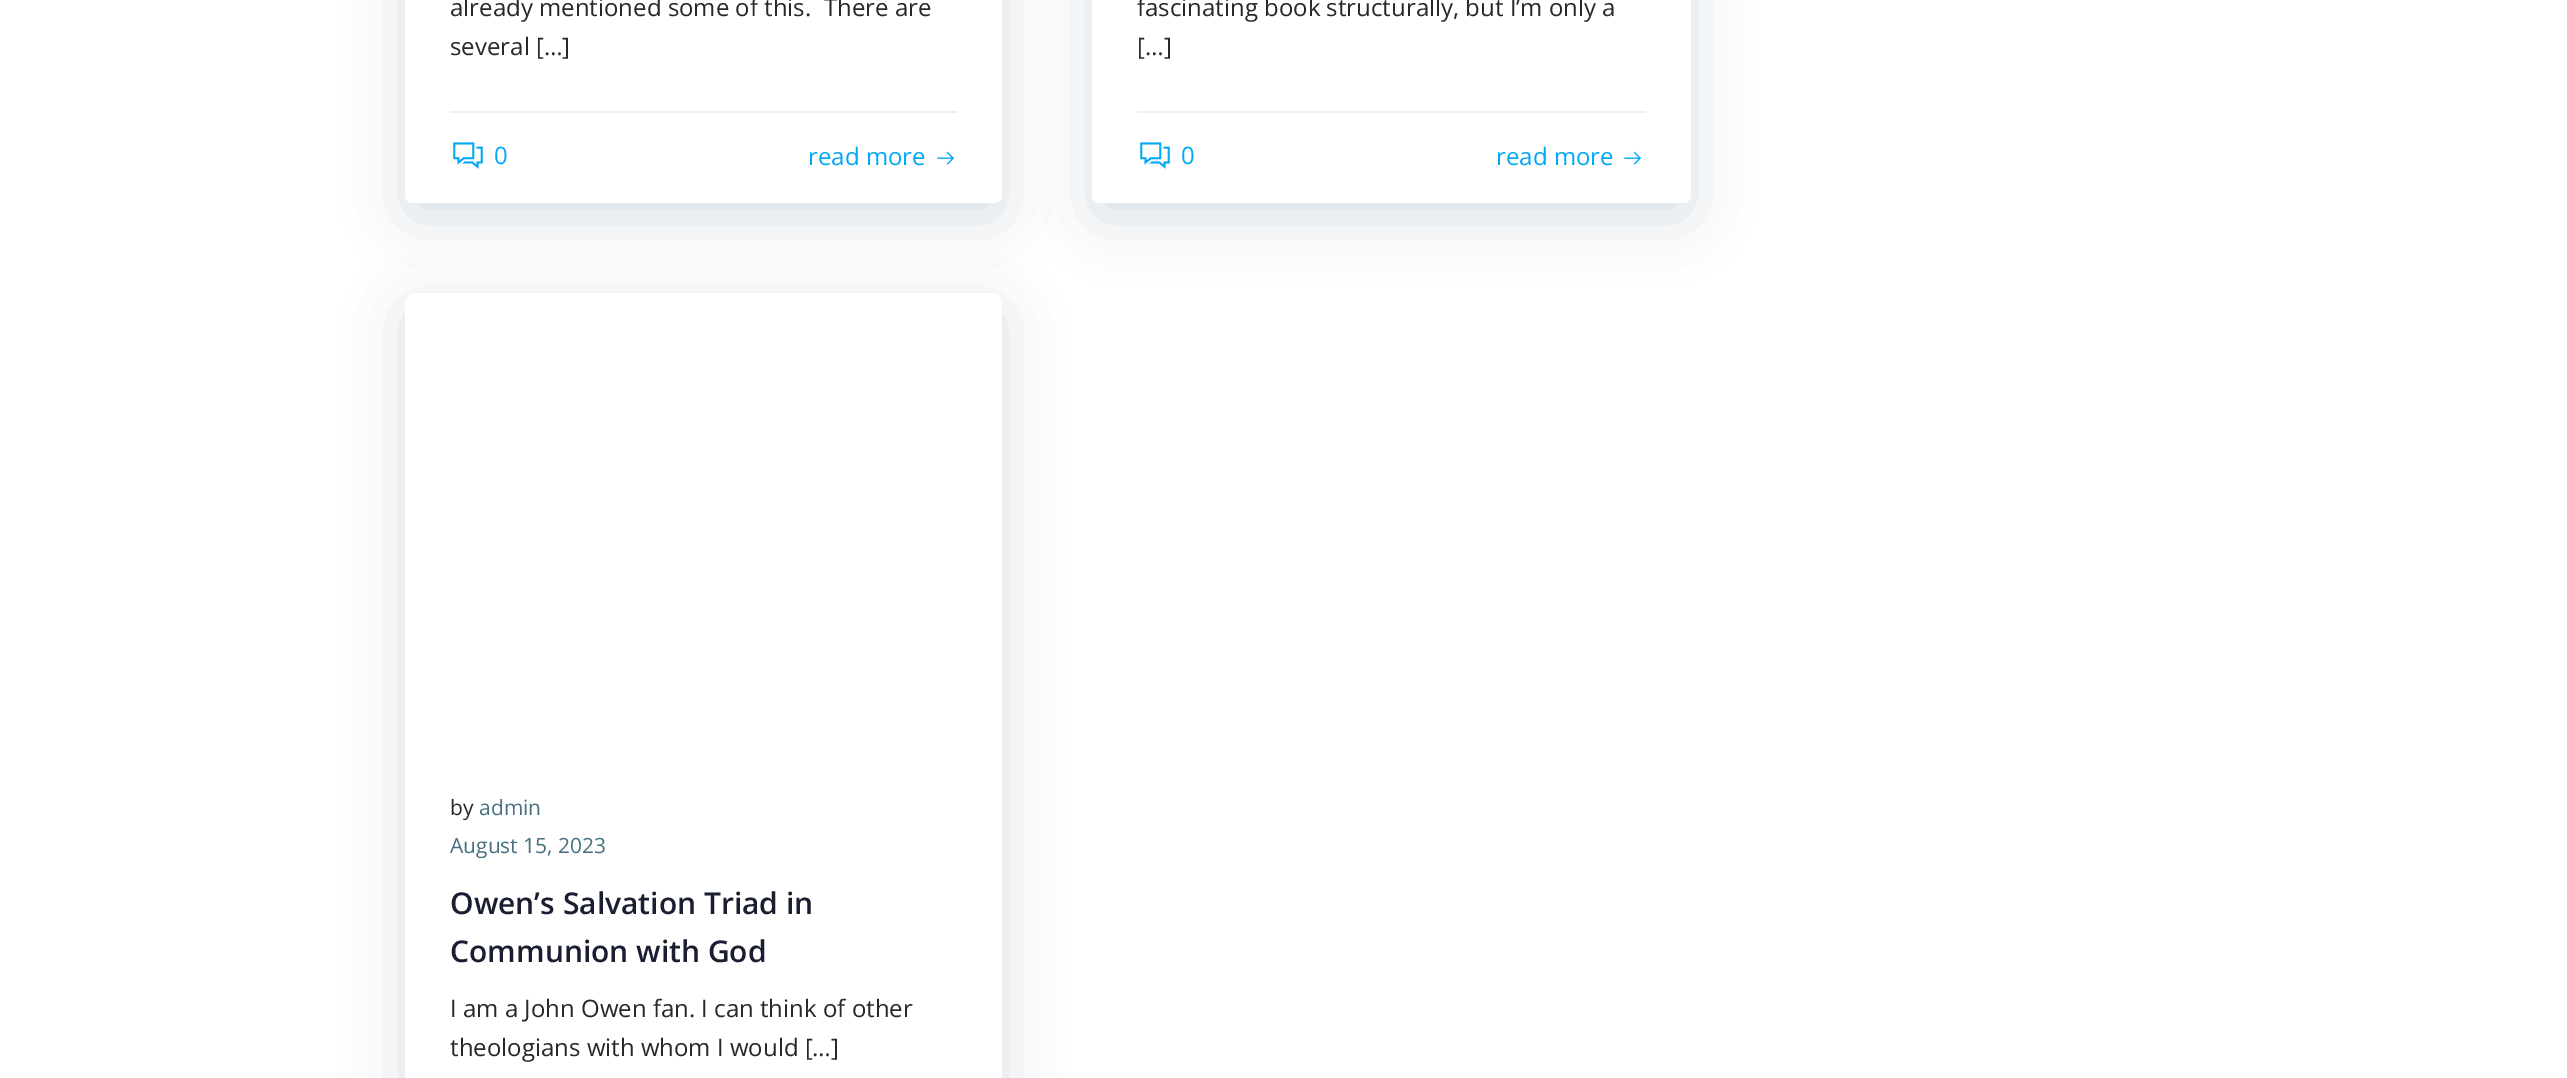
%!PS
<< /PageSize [2567 1078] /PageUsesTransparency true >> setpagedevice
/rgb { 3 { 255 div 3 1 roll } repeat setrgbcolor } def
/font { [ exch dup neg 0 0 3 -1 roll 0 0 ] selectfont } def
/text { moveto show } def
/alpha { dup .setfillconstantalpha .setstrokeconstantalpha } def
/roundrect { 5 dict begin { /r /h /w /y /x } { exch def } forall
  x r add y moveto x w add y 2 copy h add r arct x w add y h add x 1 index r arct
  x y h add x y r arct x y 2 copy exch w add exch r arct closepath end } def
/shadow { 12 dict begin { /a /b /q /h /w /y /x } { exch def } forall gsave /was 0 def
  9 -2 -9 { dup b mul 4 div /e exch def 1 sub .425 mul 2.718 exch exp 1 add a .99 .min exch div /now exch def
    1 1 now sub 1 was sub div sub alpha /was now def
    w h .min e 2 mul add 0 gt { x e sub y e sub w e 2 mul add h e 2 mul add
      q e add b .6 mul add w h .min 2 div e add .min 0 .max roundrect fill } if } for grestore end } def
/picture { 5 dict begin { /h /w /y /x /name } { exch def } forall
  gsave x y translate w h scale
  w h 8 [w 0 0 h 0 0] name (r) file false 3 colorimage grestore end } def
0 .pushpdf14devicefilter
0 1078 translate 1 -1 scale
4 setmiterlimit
255 255 255 rgb
0 0 2567 1078 rectfill
1 51 74 rgb
405 -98 597 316 8 30 0.15 shadow
255 255 255 rgb
405 -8 597 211 8 roundrect fill
238 238 238 rgb
450 111 507 2 rectfill
(img_01.rgb) 453 142 30 27 picture
(img_02.rgb) 937 151 17 14 picture
1 51 74 rgb
1092 -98 599 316 8 30 0.15 shadow
255 255 255 rgb
1092 -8 599 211 8 roundrect fill
238 238 238 rgb
1137 111 509 2 rectfill
(img_01.rgb) 1140 142 30 27 picture
(img_02.rgb) 1624 151 17 14 picture
gsave
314 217 moveto 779 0 rlineto 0 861 rlineto -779 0 rlineto closepath 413 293 moveto 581 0 rlineto 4.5 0 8 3.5 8 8 rcurveto 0 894 rlineto 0 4.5 -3.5 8 -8 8 rcurveto -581 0 rlineto -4.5 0 -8 -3.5 -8 -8 rcurveto 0 -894 rlineto 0 -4.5 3.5 -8 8 -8 rcurveto closepath eoclip newpath
1 51 74 rgb
405 308 597 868 8 30 0.15 shadow
grestore
/OpenSans-Regular 24 font
37 41 42 rgb
(already mentioned some of this.  There are) 450 16 text
(several […]) 450 55 text
3 169 244 rgb
(0) 494 164 text
(read more) 808 165 text
37 41 42 rgb
(fascinating book structurally, but I’m only a) 1137 16 text
([…]) 1137 55 text
3 169 244 rgb
(0) 1181 164 text
(read more) 1496 165 text
/OpenSans-Regular 21 font
37 41 42 rgb
(by) 450 815 text
70 112 127 rgb
(admin) 479 815 text
(August 15, 2023) 450 853 text
/OpenSans-SemiBold 30 font
27 30 49 rgb
(Owen’s Salvation Triad in) 450 914 text
(Communion with God) 450 962 text
/OpenSans-Regular 24 font
37 41 42 rgb
(I am a John Owen fan. I can think of other) 450 1017 text
(theologians with whom I would […]) 450 1056 text
.poppdf14devicefilter showpage
